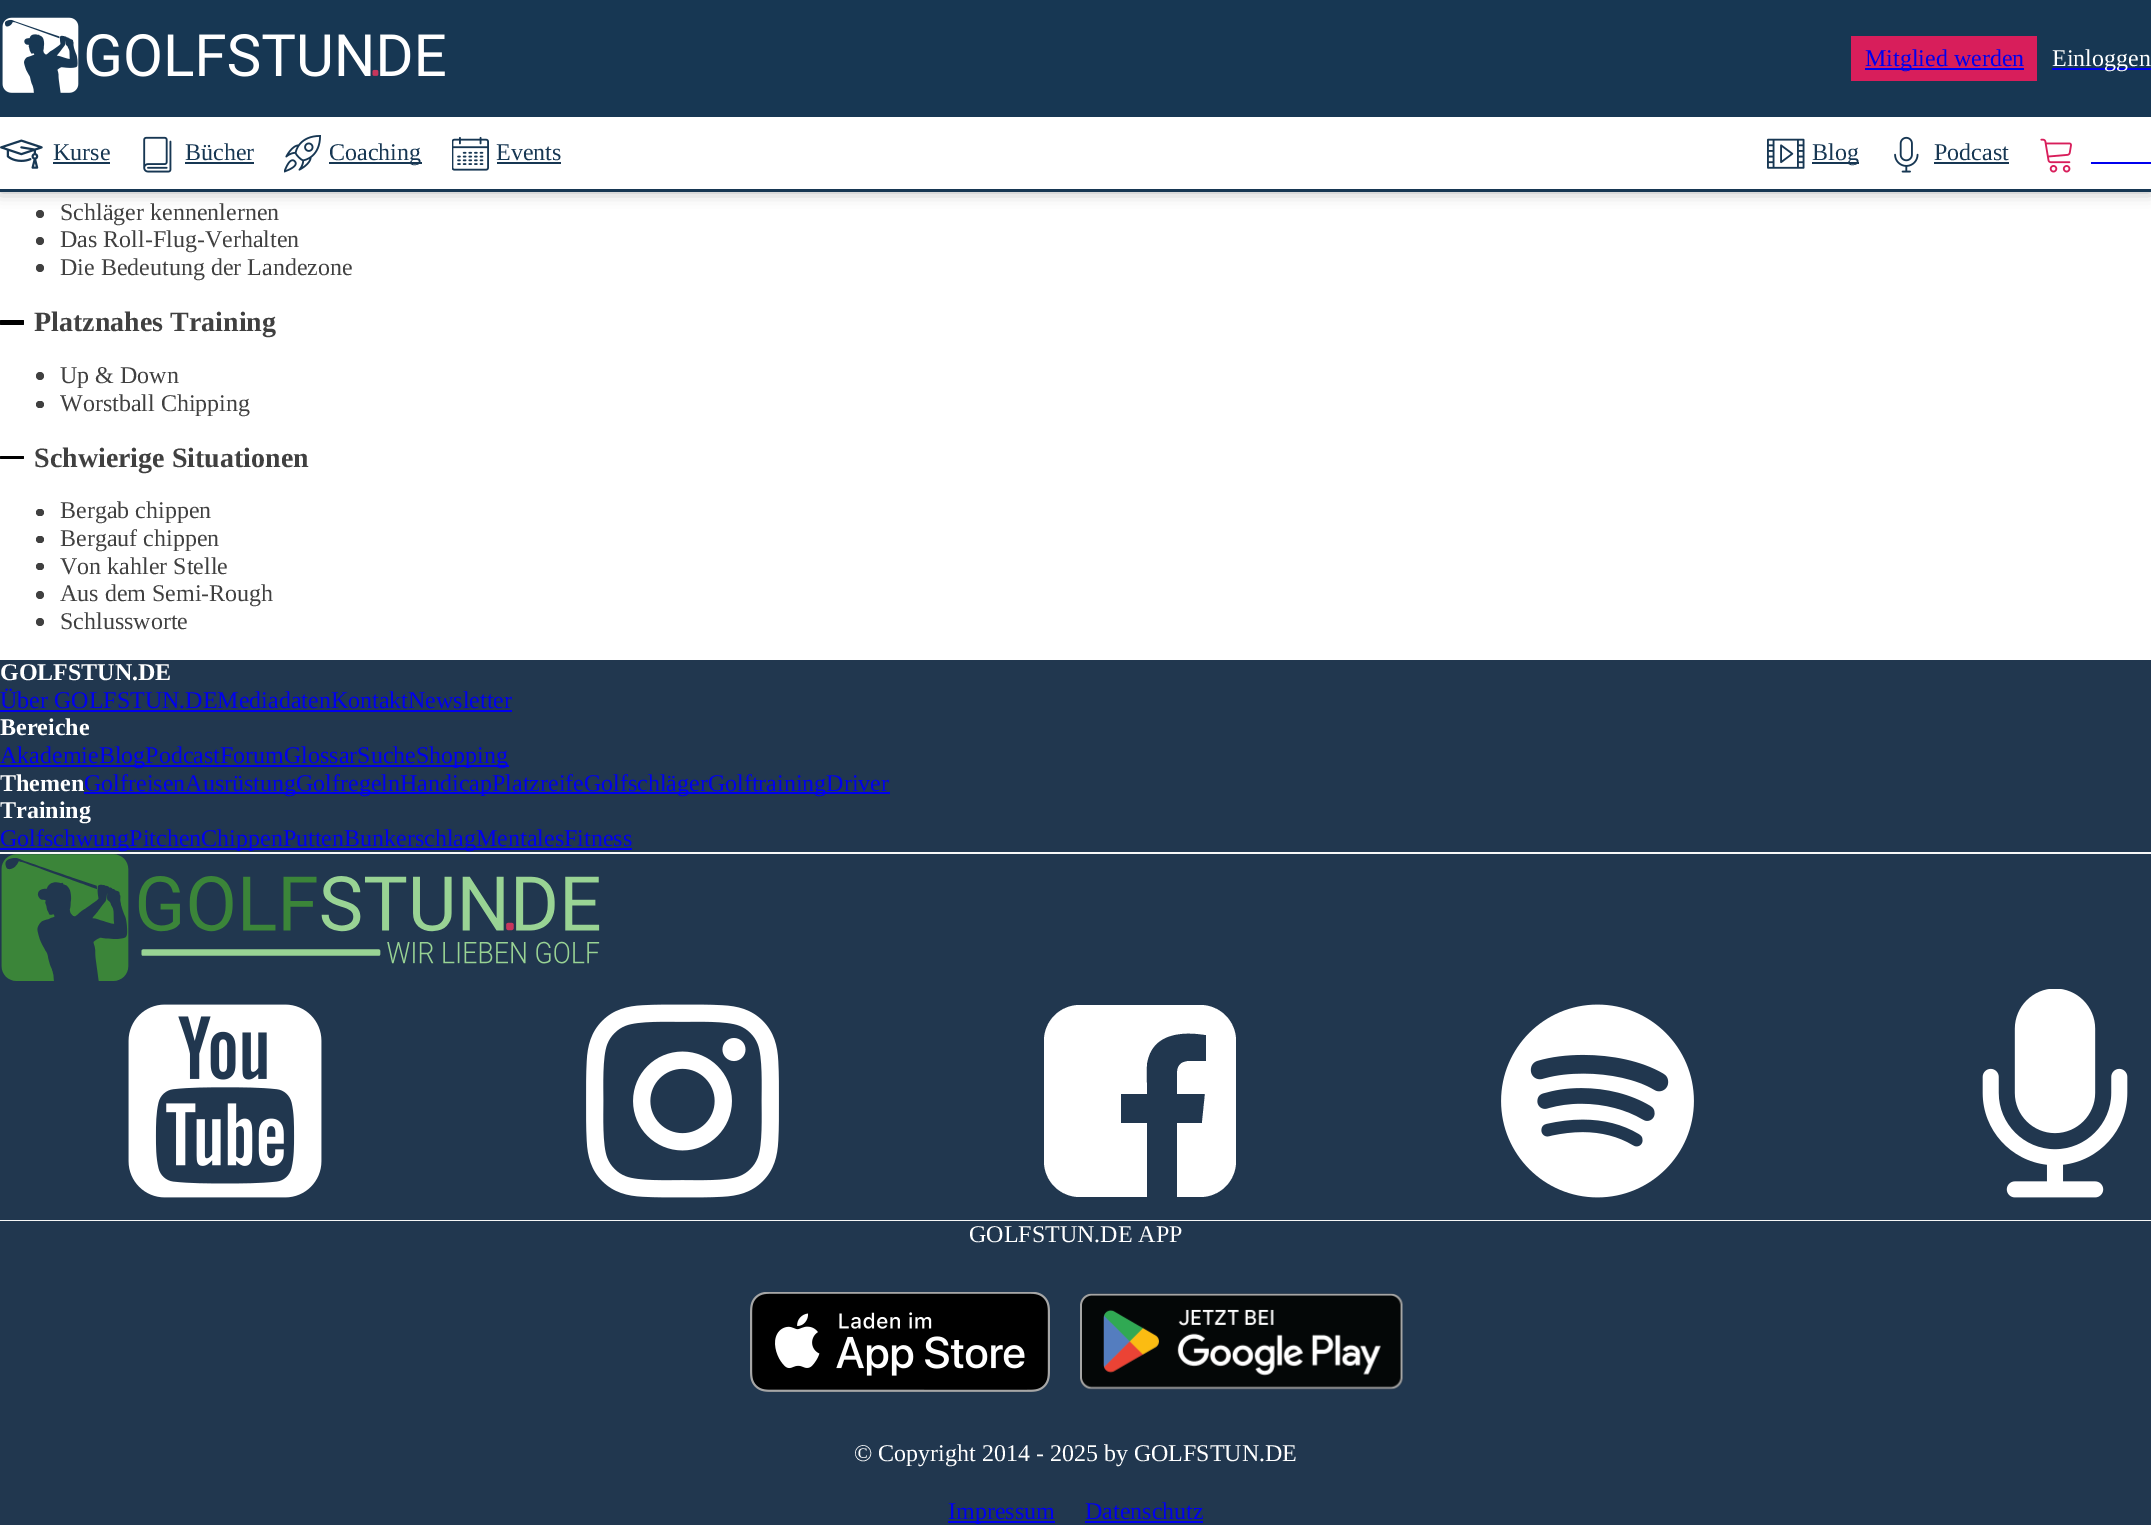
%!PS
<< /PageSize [2151 1525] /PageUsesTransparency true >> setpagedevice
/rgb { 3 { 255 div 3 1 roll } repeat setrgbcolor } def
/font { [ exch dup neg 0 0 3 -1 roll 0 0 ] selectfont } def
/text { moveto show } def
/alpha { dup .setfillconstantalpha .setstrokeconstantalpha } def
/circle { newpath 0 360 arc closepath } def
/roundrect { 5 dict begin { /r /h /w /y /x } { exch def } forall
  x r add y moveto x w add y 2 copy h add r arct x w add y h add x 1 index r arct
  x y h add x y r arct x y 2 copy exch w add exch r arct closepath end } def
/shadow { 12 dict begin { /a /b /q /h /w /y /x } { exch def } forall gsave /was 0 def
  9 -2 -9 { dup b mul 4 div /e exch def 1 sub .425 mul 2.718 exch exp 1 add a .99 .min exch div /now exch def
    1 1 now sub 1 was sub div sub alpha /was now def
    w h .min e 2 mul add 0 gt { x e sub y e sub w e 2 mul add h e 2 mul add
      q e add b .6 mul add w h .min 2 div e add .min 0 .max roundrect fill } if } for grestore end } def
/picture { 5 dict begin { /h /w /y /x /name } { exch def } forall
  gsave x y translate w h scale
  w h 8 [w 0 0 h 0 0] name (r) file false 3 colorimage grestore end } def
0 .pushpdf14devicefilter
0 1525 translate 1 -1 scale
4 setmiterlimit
255 255 255 rgb
0 0 2151 1525 rectfill
64 64 64 rgb
40 214 4 circle fill
0 0 0 rgb
0 0 2151 192 0 7.5 0.3 shadow
23 55 83 rgb
0 0 2151 117 rectfill
(img_01.rgb) 2 17 443 76 picture
216 30 91 rgb
1851 36 186 45 rectfill
0 0 238 rgb
1865 68 159 2 rectfill
2052 68 99 2 rectfill
255 255 255 rgb
0 117 2151 72 rectfill
23 55 83 rgb
0 189 2151 3 rectfill
(img_02.rgb) 0 139 43 30 picture
53 162 57 2 rectfill
(img_03.rgb) 143 136 29 37 picture
185 162 69 2 rectfill
(img_04.rgb) 284 135 37 38 picture
329 162 93 2 rectfill
(img_05.rgb) 452 136 37 35 picture
497 162 64 2 rectfill
(img_06.rgb) 1767 138 38 31 picture
1812 162 47 2 rectfill
(img_07.rgb) 1894 136 25 37 picture
1934 162 75 2 rectfill
(img_08.rgb) 2040 138 32 35 picture
0 0 238 rgb
2091 162 60 2 rectfill
64 64 64 rgb
40 241 4 circle fill
40 268 4 circle fill
0 0 0 rgb
0 320 24 5 1 roundrect fill
64 64 64 rgb
40 376 4 circle fill
36 401 8 7 3.5 roundrect fill
0 0 0 rgb
0 456 24 3 1 roundrect fill
64 64 64 rgb
36 509 8 7 3.5 roundrect fill
36 536 8 7 3.5 roundrect fill
36 563 8 7 3.5 roundrect fill
40 595 4 circle fill
40 622 4 circle fill
33 55 79 rgb
0 660 2151 192 rectfill
0 0 238 rgb
0 710 512 2 rectfill
0 765 357 2 rectfill
357 765 152 2 rectfill
84 792 806 2 rectfill
0 848 282 2 rectfill
282 848 350 2 rectfill
33 55 79 rgb
0 854 2151 366 rectfill
247 247 247 rgb
0 852 2151 2 rectfill
0 1220 2151 1 rectfill
(img_09.rgb) 1 854 599 127 picture
(img_10.rgb) 128 1004 194 194 picture
(img_11.rgb) 586 1004 193 194 picture
255 255 255 rgb
1200 1005 moveto 20 0 36 16 36 36 rcurveto 0 120 rlineto 0 20 -16 36 -36 36 rcurveto -23 0 rlineto 0 -74 rlineto 25 0 rlineto 3 -29 rlineto -28 0 rlineto 0 -19 rlineto 0 -8 2 -14 14 -14 rcurveto 15 0 rlineto 0 -26 rlineto -24 -4 -54 -2 -59 28 rcurveto -1 10 0 21 0 31 rcurveto -26 0 rlineto 0 29 rlineto 26 0 rlineto 0 74 rlineto -67 0 rlineto -20 0 -36 -16 -36 -36 rcurveto 0 -120 rlineto 0 -20 16 -36 36 -36 rcurveto closepath fill
(img_12.rgb) 1501 1004 193 194 picture
(img_13.rgb) 1982 989 146 209 picture
33 55 79 rgb
0 1221 2151 304 rectfill
(img_14.rgb) 750 1292 300 100 picture
(img_15.rgb) 1080 1293 323 97 picture
0 0 238 rgb
948 1521 107 2 rectfill
1085 1521 118 2 rectfill
/LiberationSerif-Regular 24 font
(Mitglied werden) 1865 66 text
255 255 255 rgb
(Einloggen) 2052 66 text
23 55 83 rgb
(Kurse) 53 160 text
(Bücher) 185 160 text
(Coaching) 329 160 text
(Events) 496 160 text
(Blog) 1812 160 text
(Podcast) 1934 160 text
64 64 64 rgb
(Schläger kennenlernen) 60 220 text
(Das Roll-Flug-Verhalten) 60 247 text
(Die Bedeutung der Landezone) 60 275 text
/LiberationSerif-Bold 28 font
(Platznahes Training) 34 331 text
/LiberationSerif-Regular 24 font
(Up & Down) 60 383 text
(Worstball Chipping) 60 411 text
/LiberationSerif-Bold 28 font
(Schwierige Situationen) 34 467 text
/LiberationSerif-Regular 24 font
(Bergab chippen) 60 518 text
(Bergauf chippen) 60 546 text
(Von kahler Stelle) 60 574 text
(Aus dem Semi-Rough) 60 601 text
(Schlussworte) 60 629 text
/LiberationSerif-Bold 24 font
255 255 255 rgb
(GOLFSTUN.DE) 0 680 text
/LiberationSerif-Regular 24 font
0 0 238 rgb
(Über GOLFSTUN.DEMediadatenKontaktNewsletter) 0 708 text
/LiberationSerif-Bold 24 font
255 255 255 rgb
(Bereiche) 0 735 text
/LiberationSerif-Regular 24 font
0 0 238 rgb
(AkademieBlogPodcastForumGlossarSuche) 0 763 text
(Shopping) 416 763 text
/LiberationSerif-Bold 24 font
255 255 255 rgb
(Themen) 0 791 text
/LiberationSerif-Regular 24 font
0 0 238 rgb
(GolfreisenAusrüstungGolfregelnHandicapPlatzreifeGolfschlägerGolftrainingDriver) 84 791 text
/LiberationSerif-Bold 24 font
255 255 255 rgb
(Training) 0 818 text
/LiberationSerif-Regular 24 font
0 0 238 rgb
(GolfschwungPitchenChippenPutten) 0 846 text
(BunkerschlagMentalesFitness) 344 846 text
255 255 255 rgb
(GOLFSTUN.DE APP) 969 1242 text
(© Copyright 2014 - 2025 by GOLFSTUN.DE) 854 1461 text
0 0 238 rgb
(Impressum) 948 1519 text
(Datenschutz) 1085 1519 text
.poppdf14devicefilter showpage
